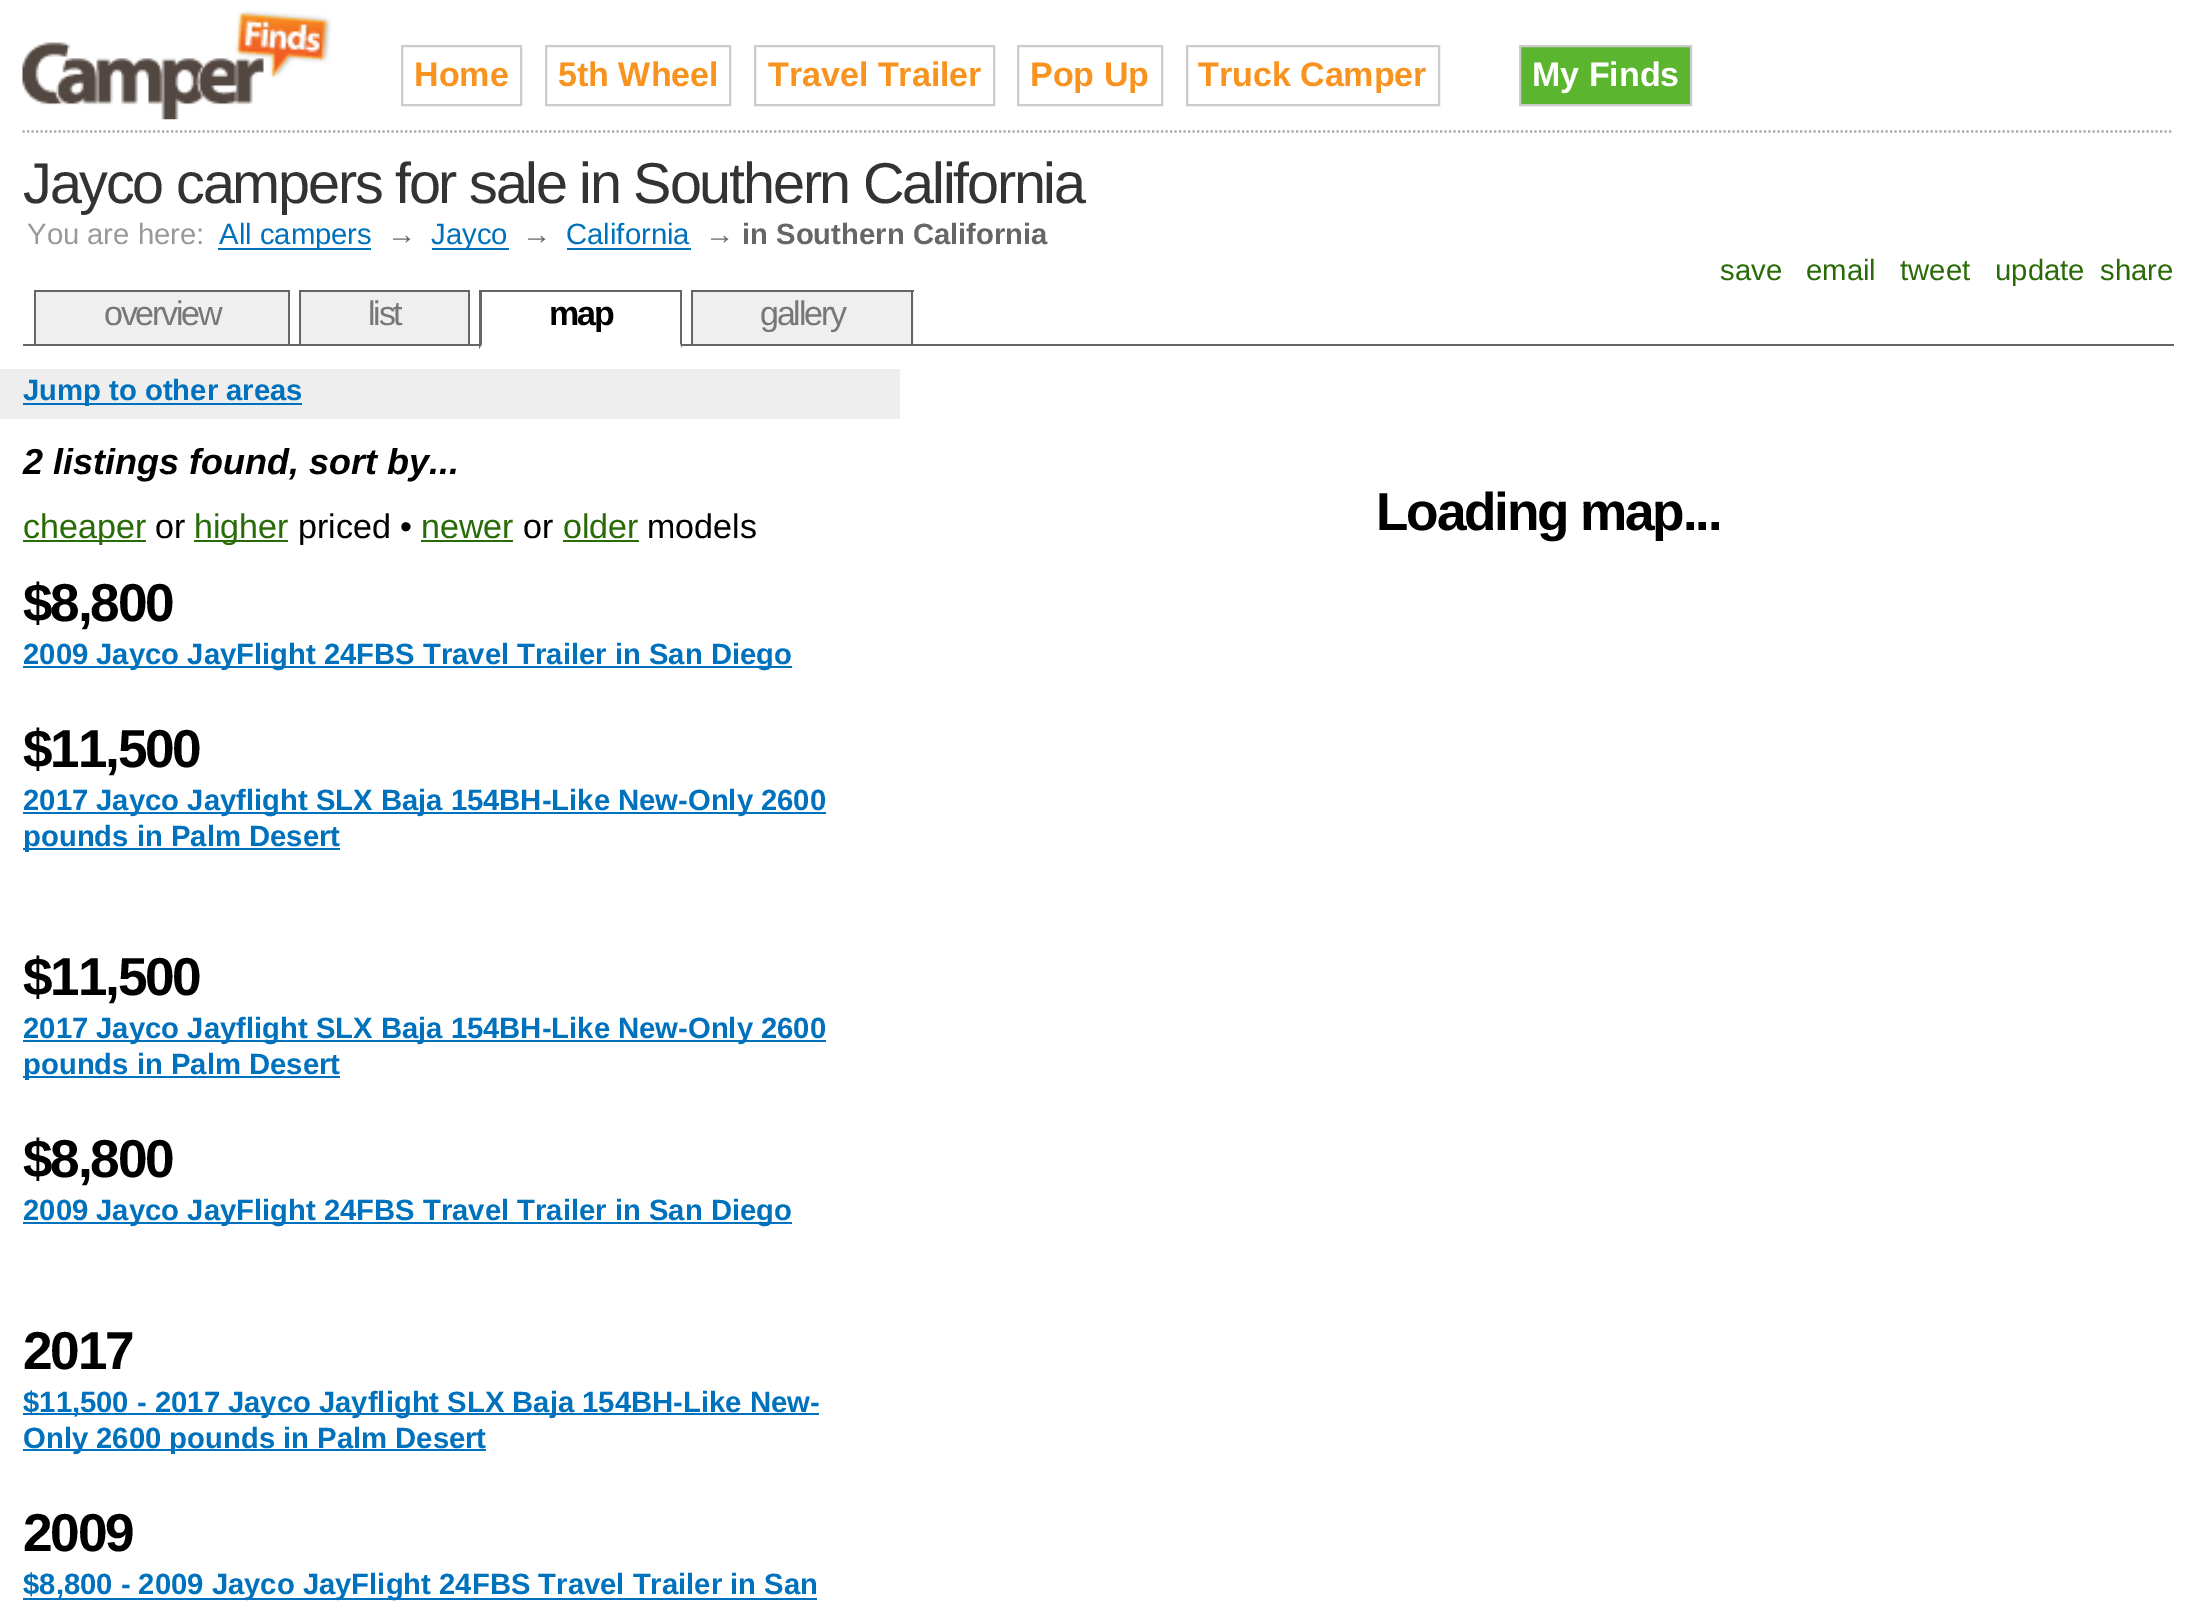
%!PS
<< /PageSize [2195 1602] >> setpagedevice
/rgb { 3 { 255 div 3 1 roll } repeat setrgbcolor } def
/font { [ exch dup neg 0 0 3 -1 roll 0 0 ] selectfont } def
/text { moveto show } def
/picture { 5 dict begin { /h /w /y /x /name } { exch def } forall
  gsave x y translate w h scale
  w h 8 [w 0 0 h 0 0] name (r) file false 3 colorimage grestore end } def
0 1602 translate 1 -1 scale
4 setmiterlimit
255 255 255 rgb
0 0 2195 1602 rectfill
(img_01.rgb) 22 10 310 110 picture
204 204 204 rgb
2 setlinewidth
402 46 119 59 rectstroke
546 46 184 59 rectstroke
755 46 239 59 rectstroke
1018 46 144 59 rectstroke
1187 46 252 59 rectstroke
92 181 47 rgb
1520 46 moveto 171 0 rlineto 0 59 rlineto -171 0 rlineto closepath gsave fill grestore
204 204 204 rgb
stroke
170 170 170 rgb
2.2 setlinewidth
[2.25 2.25] 0 setdash
22.5 131.5 moveto 2151 0 rlineto stroke
0 113 188 rgb
218 248 153 2 rectfill
432 248 77 2 rectfill
567 248 124 2 rectfill
102 102 102 rgb
23 344 2151 2 rectfill
239 239 239 rgb
36 292 252 52 rectfill
102 102 102 rgb
34 290 256 2 rectfill
288 290 2 54 rectfill
34 290 2 54 rectfill
239 239 239 rgb
301 292 167 52 rectfill
102 102 102 rgb
299 290 171 2 rectfill
468 290 2 54 rectfill
299 290 2 54 rectfill
479 290 203 2 rectfill
682 290 moveto 0 59 rlineto -2 -5 rlineto 0 -52 rlineto closepath fill
255 255 255 rgb
682 349 moveto -203 0 rlineto 3 -5 rlineto 198 0 rlineto closepath fill
102 102 102 rgb
479 349 moveto 0 -59 rlineto 3 2 rlineto 0 52 rlineto closepath fill
239 239 239 rgb
693 292 221 52 rectfill
102 102 102 rgb
691 290 223 2 rectfill
911 290 2 54 rectfill
691 290 2 54 rectfill
238 238 238 rgb
0 369 900 50 rectfill
0 113 188 rgb
23 403 279 2 rectfill
40 107 7 rgb
23 540 123 2 rectfill
194 540 94 2 rectfill
421 540 92 2 rectfill
563 540 76 2 rectfill
0 113 188 rgb
23 666 769 2 rectfill
23 812 803 2 rectfill
23 848 317 2 rectfill
23 1040 803 2 rectfill
23 1076 317 2 rectfill
23 1222 769 2 rectfill
23 1413 796 2 rectfill
23 1449 463 2 rectfill
23 1598 794 2 rectfill
/LiberationSans-Bold 34 font
247 147 30 rgb
(Home) 414 86 text
(5th Wheel) 558 86 text
(Travel Trailer) 768 86 text
(Pop Up) 1030 86 text
(Truck Camper) 1198 86 text
255 255 255 rgb
(My Finds) 1532 86 text
/LiberationSans-Regular 57.6 font
51 51 51 rgb
23 203 moveto -2.25 0 (Jayco campers for sale in Southern California) ashow
/LiberationSans-Regular 29.25 font
153 153 153 rgb
(You are here:) 27 244 text
0 113 188 rgb
(All campers) 219 244 text
102 102 102 rgb
(→) 387 244 text
0 113 188 rgb
(Jayco) 431 244 text
102 102 102 rgb
(→) 522 244 text
0 113 188 rgb
(California) 566 244 text
102 102 102 rgb
(→) 705 244 text
/LiberationSans-Bold 29.25 font
(in Southern California) 742 244 text
/LiberationSans-Regular 29.25 font
40 107 7 rgb
(save) 1720 280 text
(email) 1806 280 text
(tweet) 1900 280 text
(update) 1995 280 text
(share) 2100 280 text
/LiberationSans-Regular 34 font
119 119 119 rgb
104 325 moveto -2.25 0 (overview) ashow
368 325 moveto -2.25 0 (list) ashow
/LiberationSans-Bold 34 font
0 0 0 rgb
549 325 moveto -2.25 0 (map) ashow
/LiberationSans-Regular 34 font
119 119 119 rgb
760 325 moveto -2.25 0 (gallery) ashow
/LiberationSans-Bold 29.25 font
0 113 188 rgb
(Jump to other areas) 23 400 text
/LiberationSans-BoldItalic 36 font
0 0 0 rgb
(2 listings found, sort by...) 23 474 text
/LiberationSans-Regular 34 font
40 107 7 rgb
(cheaper) 23 538 text
0 0 0 rgb
(or) 155 538 text
40 107 7 rgb
(higher) 194 538 text
0 0 0 rgb
(priced •) 298 538 text
40 107 7 rgb
(newer) 421 538 text
0 0 0 rgb
(or) 523 538 text
40 107 7 rgb
(older) 563 538 text
0 0 0 rgb
(models) 647 538 text
/LiberationSans-Bold 53.25 font
23 621 moveto -2.25 0 ($8,800) ashow
/LiberationSans-Bold 29.25 font
0 113 188 rgb
(2009 Jayco JayFlight 24FBS Travel Trailer in San Diego) 23 664 text
/LiberationSans-Bold 53.25 font
0 0 0 rgb
23 767 moveto -2.25 0 ($11,500) ashow
/LiberationSans-Bold 29.25 font
0 113 188 rgb
(2017 Jayco Jayflight SLX Baja 154BH-Like New-Only 2600) 23 810 text
(pounds in Palm Desert) 23 846 text
/LiberationSans-Bold 53.25 font
0 0 0 rgb
23 995 moveto -2.25 0 ($11,500) ashow
/LiberationSans-Bold 29.25 font
0 113 188 rgb
(2017 Jayco Jayflight SLX Baja 154BH-Like New-Only 2600) 23 1038 text
(pounds in Palm Desert) 23 1074 text
/LiberationSans-Bold 53.25 font
0 0 0 rgb
23 1177 moveto -2.25 0 ($8,800) ashow
/LiberationSans-Bold 29.25 font
0 113 188 rgb
(2009 Jayco JayFlight 24FBS Travel Trailer in San Diego) 23 1220 text
/LiberationSans-Bold 53.25 font
0 0 0 rgb
23 1369 moveto -2.25 0 (2017) ashow
/LiberationSans-Bold 29.25 font
0 113 188 rgb
($11,500 - 2017 Jayco Jayflight SLX Baja 154BH-Like New-) 23 1412 text
(Only 2600 pounds in Palm Desert) 23 1448 text
/LiberationSans-Bold 53.25 font
0 0 0 rgb
23 1551 moveto -2.25 0 (2009) ashow
/LiberationSans-Bold 29.25 font
0 113 188 rgb
($8,800 - 2009 Jayco JayFlight 24FBS Travel Trailer in San) 23 1594 text
/LiberationSans-Bold 53.25 font
0 0 0 rgb
1376 530 moveto -2.25 0 (Loading map...) ashow
showpage
